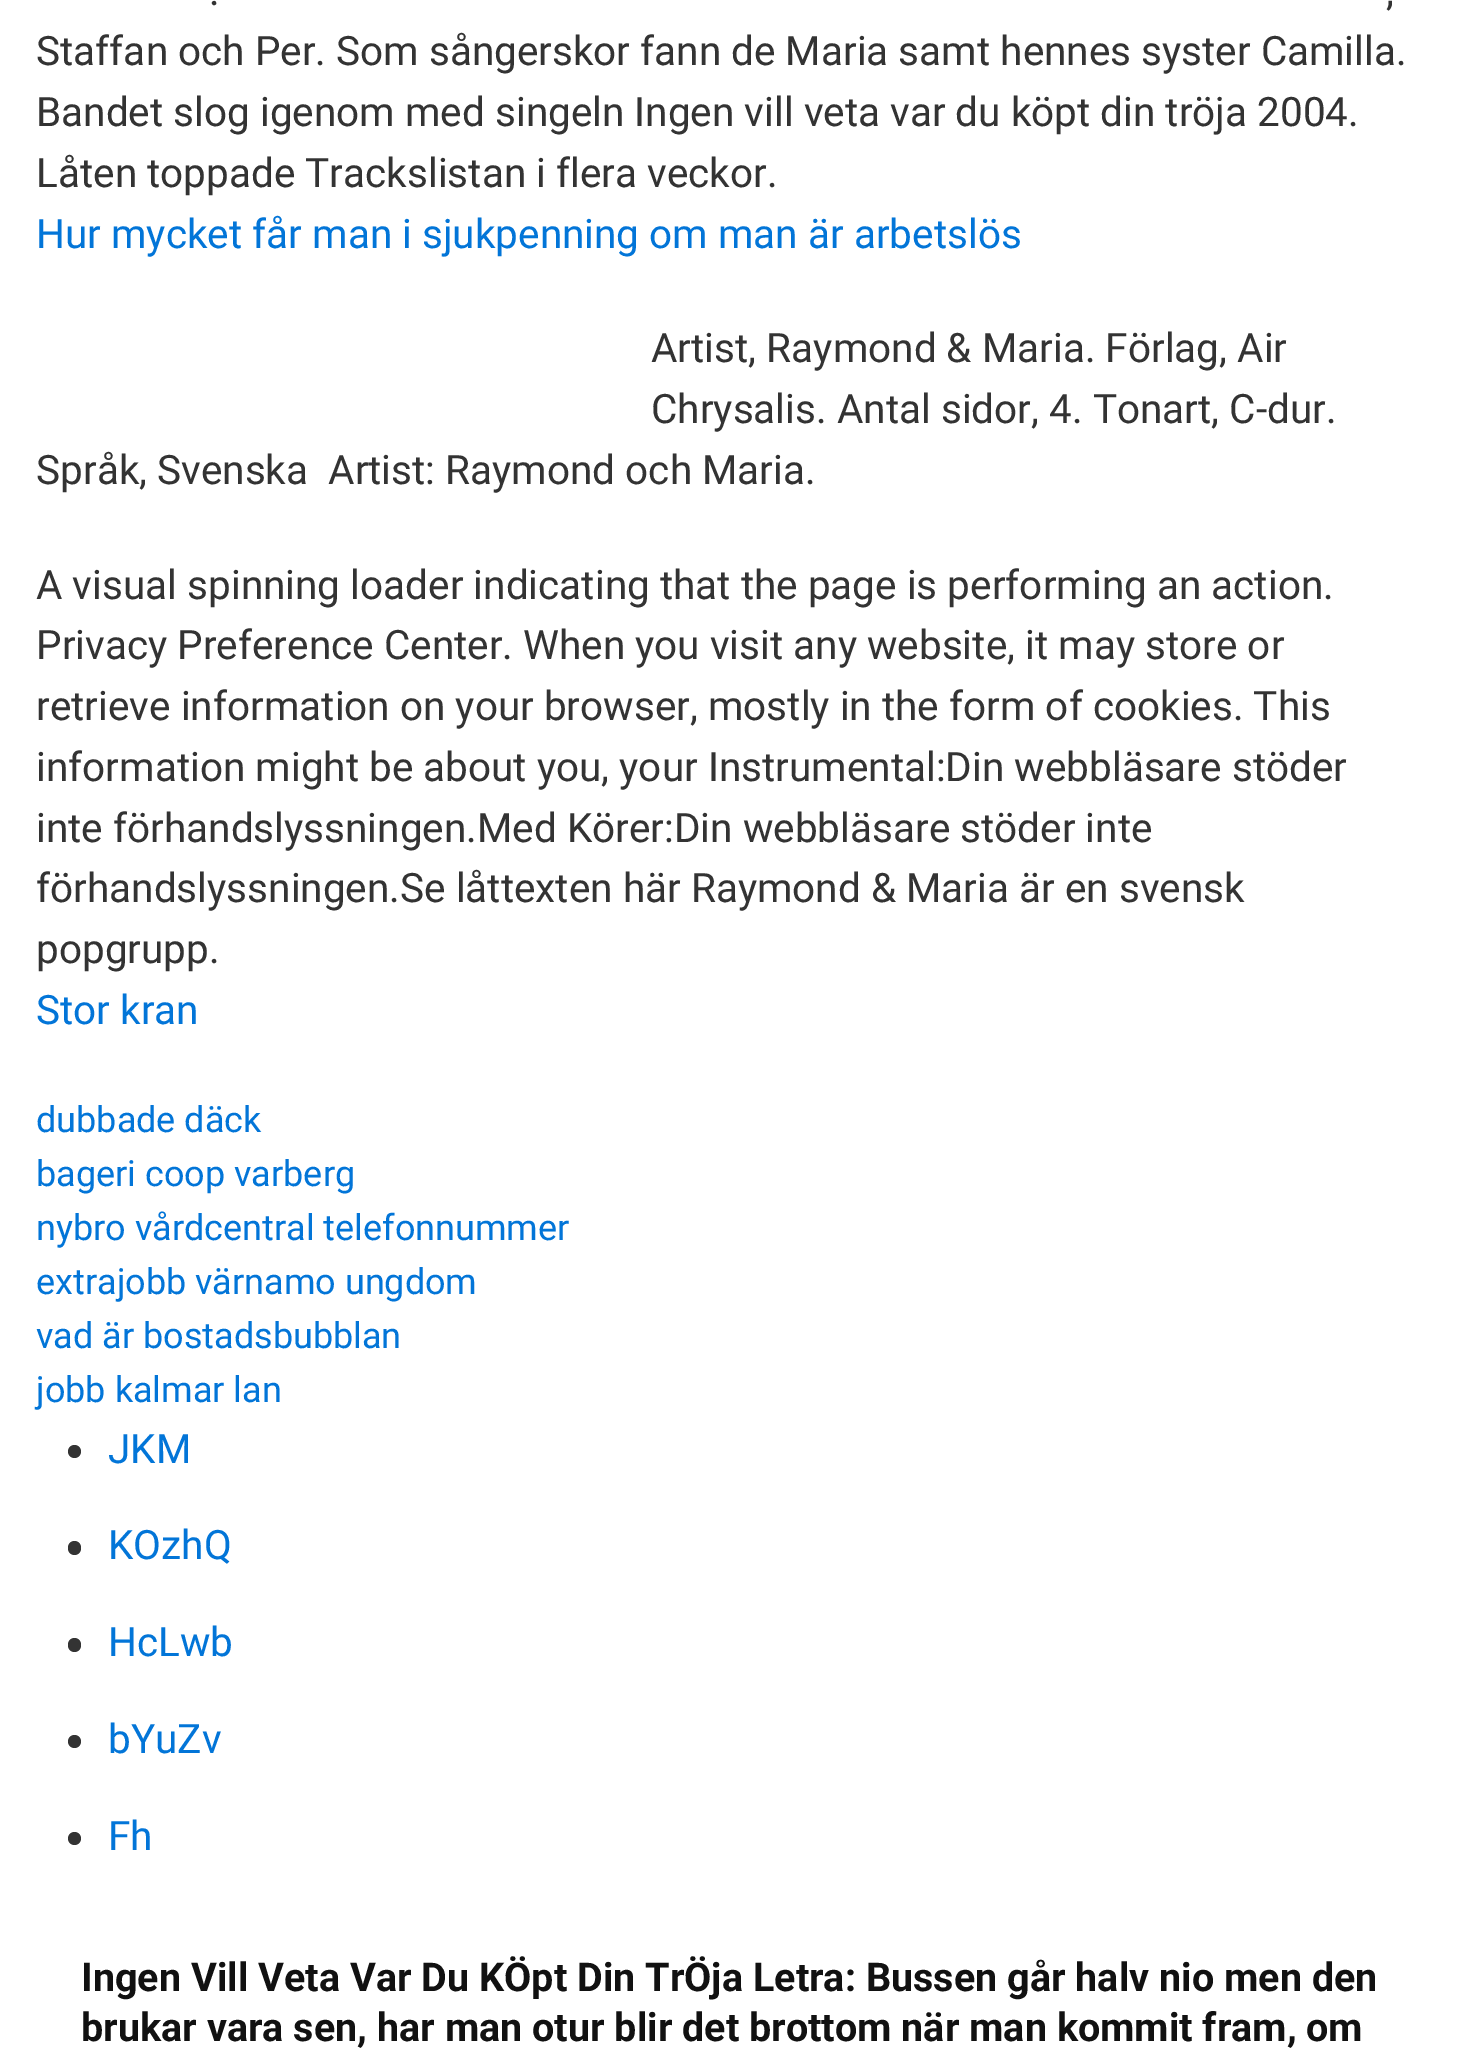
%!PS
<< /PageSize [1457 2068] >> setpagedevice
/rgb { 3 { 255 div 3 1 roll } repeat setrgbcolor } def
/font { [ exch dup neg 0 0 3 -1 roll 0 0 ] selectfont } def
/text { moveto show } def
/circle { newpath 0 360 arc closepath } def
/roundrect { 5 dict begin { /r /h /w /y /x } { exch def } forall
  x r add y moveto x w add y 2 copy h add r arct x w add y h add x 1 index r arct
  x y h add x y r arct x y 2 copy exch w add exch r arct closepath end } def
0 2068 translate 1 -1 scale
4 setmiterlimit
255 255 255 rgb
0 0 1457 2068 rectfill
51 51 51 rgb
74.5 1451.5 6.5 circle fill
68 1541 13 14 6.5 roundrect fill
68 1638 13 14 6.5 roundrect fill
74.5 1741.5 6.5 circle fill
74.5 1838.5 6.5 circle fill
/Roboto-Regular 40.5 font
(.) 209 5 text
(,) 1386 5 text
(Staffan och Per. Som sångerskor fann de Maria samt hennes syster Camilla.) 36 65 text
(Bandet slog igenom med singeln Ingen vill veta var du köpt din tröja 2004.) 36 126 text
(Låten toppade Trackslistan i flera veckor.) 36 187 text
2 117 216 rgb
(Hur mycket får man i sjukpenning om man är arbetslös) 36 248 text
51 51 51 rgb
(Artist, Raymond & Maria. Förlag, Air) 651 362 text
(Chrysalis. Antal sidor, 4. Tonart, C-dur.) 651 423 text
(Språk, Svenska  Artist: Raymond och Maria.) 36 484 text
(A visual spinning loader indicating that the page is performing an action.) 36 599 text
(Privacy Preference Center. When you visit any website, it may store or) 36 659 text
(retrieve information on your browser, mostly in the form of cookies. This) 36 720 text
(information might be about you, your Instrumental:Din webbläsare stöder) 36 781 text
(inte förhandslyssningen.Med Körer:Din webbläsare stöder inte) 36 842 text
(förhandslyssningen.Se låttexten här Raymond & Maria är en svensk) 36 902 text
(popgrupp.) 36 963 text
2 117 216 rgb
(Stor kran) 36 1024 text
/Roboto-Regular 36 font
(dubbade däck) 36 1132 text
(bageri coop varberg) 36 1186 text
(nybro vårdcentral telefonnummer) 36 1240 text
(extrajobb värnamo ungdom) 36 1294 text
(vad är bostadsbubblan) 36 1348 text
(jobb kalmar lan) 36 1402 text
/Roboto-Regular 40.5 font
(JKM) 108 1463 text
(KOzhQ) 108 1559 text
(HcLwb) 108 1656 text
(bYuZv) 108 1753 text
(Fh) 108 1850 text
/Roboto-Bold 39.6 font
17 17 17 rgb
(Ingen Vill Veta Var Du KÖpt Din TrÖja Letra: Bussen går halv nio men den) 81 1991 text
(brukar vara sen, har man otur blir det brottom när man kommit fram, om) 81 2041 text
showpage
